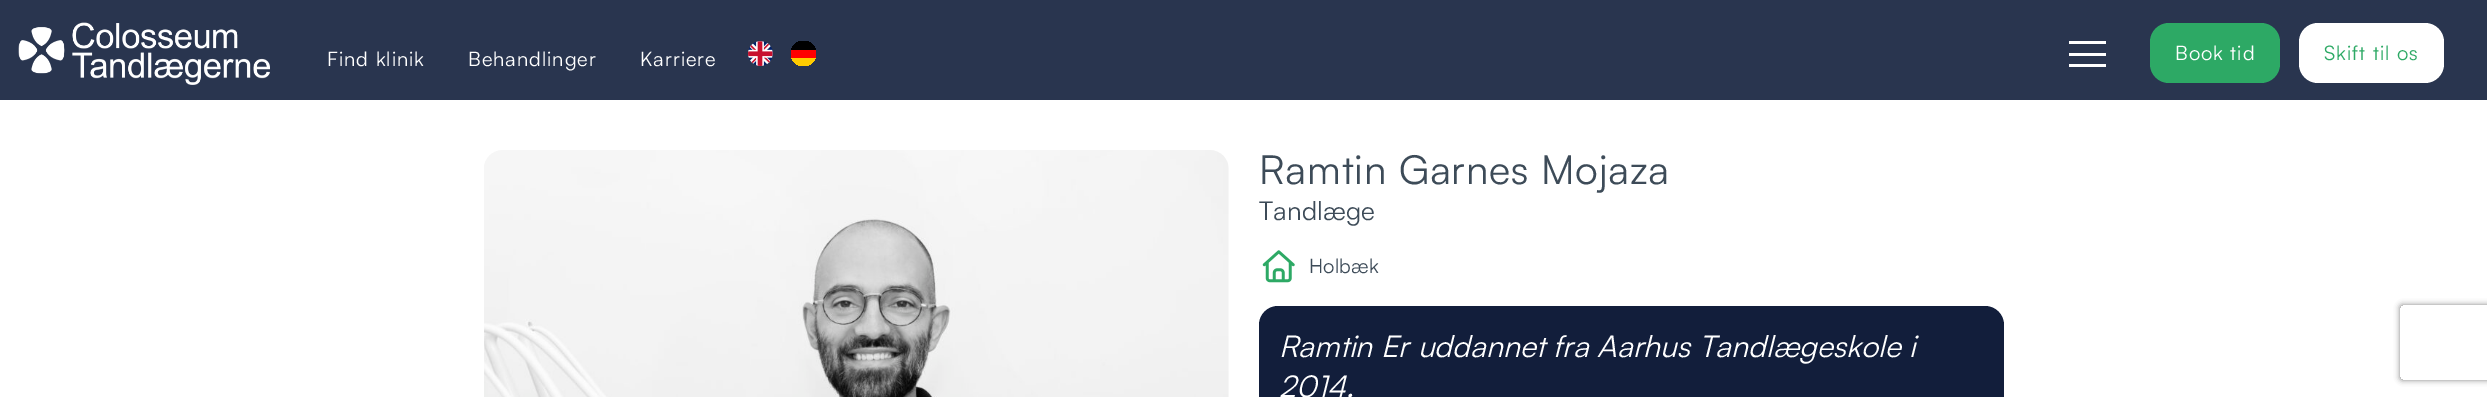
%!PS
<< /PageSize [2487 397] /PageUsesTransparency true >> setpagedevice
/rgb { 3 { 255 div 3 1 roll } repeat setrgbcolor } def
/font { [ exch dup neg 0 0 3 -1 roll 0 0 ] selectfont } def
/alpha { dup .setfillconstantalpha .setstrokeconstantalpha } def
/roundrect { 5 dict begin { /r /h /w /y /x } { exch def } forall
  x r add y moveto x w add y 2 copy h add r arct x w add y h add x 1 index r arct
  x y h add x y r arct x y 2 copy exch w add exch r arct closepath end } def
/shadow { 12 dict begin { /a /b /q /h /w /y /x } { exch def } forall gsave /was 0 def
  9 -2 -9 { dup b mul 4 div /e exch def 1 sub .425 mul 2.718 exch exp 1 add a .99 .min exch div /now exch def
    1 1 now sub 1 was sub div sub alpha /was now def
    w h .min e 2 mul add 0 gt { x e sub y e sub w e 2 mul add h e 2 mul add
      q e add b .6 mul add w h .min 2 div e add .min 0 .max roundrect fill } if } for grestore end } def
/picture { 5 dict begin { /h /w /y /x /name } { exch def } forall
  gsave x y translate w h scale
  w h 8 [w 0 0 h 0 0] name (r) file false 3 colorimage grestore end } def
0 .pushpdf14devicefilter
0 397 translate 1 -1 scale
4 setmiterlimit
255 255 255 rgb
0 0 2487 397 rectfill
41 53 79 rgb
0 0 2487 100 rectfill
255 255 255 rgb
2069 41 37 3 rectfill
2069 53 37 3 rectfill
2069 64 37 3 rectfill
(img_01.rgb) 18 22 252 63 picture
(img_02.rgb) 748 41 25 25 picture
gsave
791 41 25 25 12.5 roundrect clip newpath
255 204 0 rgb
791 58 25 8 rectfill
0 0 1 rgb
791 41 25 9 rectfill
255 0 0 rgb
791 50 25 8 rectfill
grestore
45 169 101 rgb
2150 23 130 60 19 roundrect fill
255 255 255 rgb
2299 23 145 60 19 roundrect fill
(img_03.rgb) 484 150 745 247 picture
(img_04.rgb) 1262 250 33 33 picture
18 30 59 rgb
1259 306 745 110 19 roundrect fill
gsave
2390 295 moveto 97 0 rlineto 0 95 rlineto -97 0 rlineto closepath 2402.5 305 moveto 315 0 rlineto 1.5 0 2.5 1 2.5 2.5 rcurveto 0 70 rlineto 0 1.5 -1 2.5 -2.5 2.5 rcurveto -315 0 rlineto -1.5 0 -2.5 -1 -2.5 -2.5 rcurveto 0 -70 rlineto 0 -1.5 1 -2.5 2.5 -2.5 rcurveto closepath eoclip newpath
128 128 128 rgb
2400 305 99 75 2.5 3 1 shadow
grestore
/Satoshi-Regular 20 font
255 255 255 rgb
327 66 moveto 1 0 (Find klinik) ashow
468 66 moveto 1 0 (Behandlinger) ashow
640 66 moveto 1 0 (Karriere) ashow
2175 60 moveto 1 0 (Book tid) ashow
45 169 101 rgb
2324 60 moveto 1 0 (Skift til os) ashow
/Satoshi-Regular 40 font
61 75 88 rgb
1259 184 moveto 0.8 0 (Ramtin Garnes Mojaza) ashow
/Satoshi-Regular 26 font
1259 220 moveto 0.2 0 (Tandlæge) ashow
/Satoshi-Regular 20 font
1309 273 moveto 0.2 0 (Holbæk) ashow
/Satoshi-Italic 30 font
255 255 255 rgb
1279 357 moveto 0.2 0 (Ramtin Er uddannet fra Aarhus Tandlægeskole i) ashow
1279 397 moveto 0.2 0 (2014.) ashow
.poppdf14devicefilter showpage
